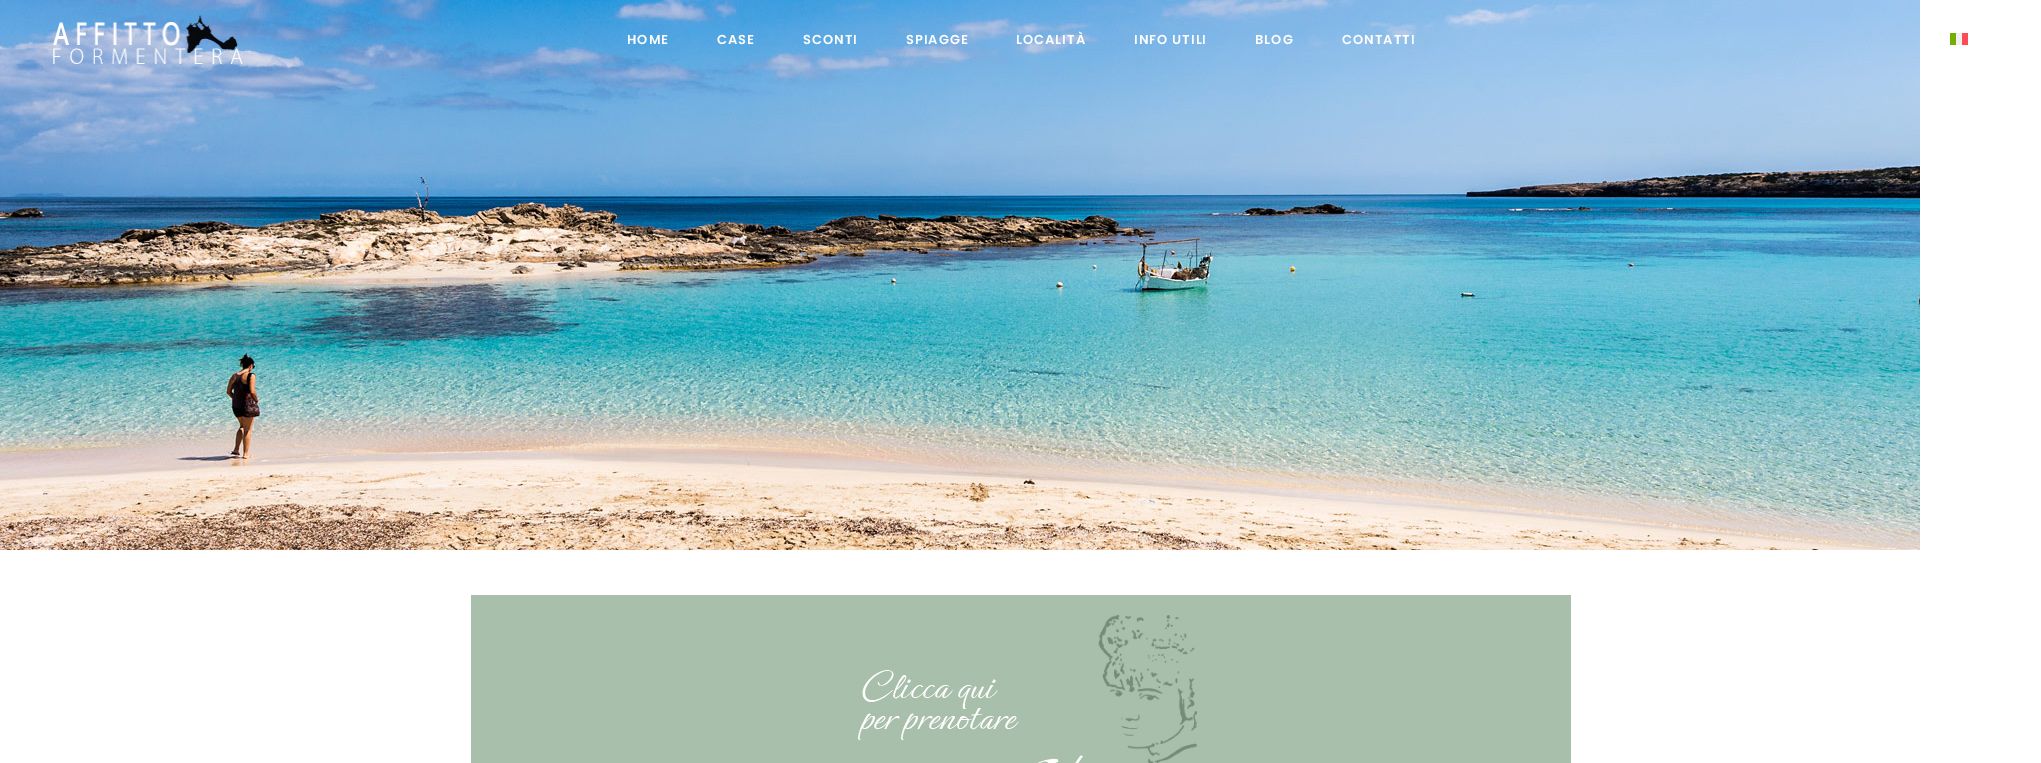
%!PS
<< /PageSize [2041 763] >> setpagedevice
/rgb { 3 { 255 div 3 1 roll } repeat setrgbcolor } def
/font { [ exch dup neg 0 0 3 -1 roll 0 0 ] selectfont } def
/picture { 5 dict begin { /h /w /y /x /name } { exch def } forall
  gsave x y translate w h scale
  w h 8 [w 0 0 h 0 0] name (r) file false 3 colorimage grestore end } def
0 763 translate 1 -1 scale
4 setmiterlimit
255 255 255 rgb
0 0 2041 763 rectfill
(img_01.rgb) 0 0 1920 550 picture
168 191 171 rgb
471 595 1100 168 rectfill
(img_02.rgb) 858 615 339 148 picture
(img_03.rgb) 53 15 190 49 picture
240 240 240 rgb
1956 33 6 12 rectfill
255 75 85 rgb
1962 33 6 12 rectfill
115 175 0 rgb
1950 33 6 12 rectfill
/Poppins-SemiBold 13 font
255 255 255 rgb
627 44 moveto 1 0 (HOME) ashow
717 44 moveto 1 0 (CASE) ashow
803 44 moveto 1 0 (SCONTI) ashow
906 44 moveto 1 0 (SPIAGGE) ashow
1016 44 moveto 1 0 (LOCALITÀ) ashow
1134 44 moveto 1 0 (INFO UTILI) ashow
1255 44 moveto 1 0 (BLOG) ashow
1342 44 moveto 1 0 (CONTATTI) ashow
showpage
